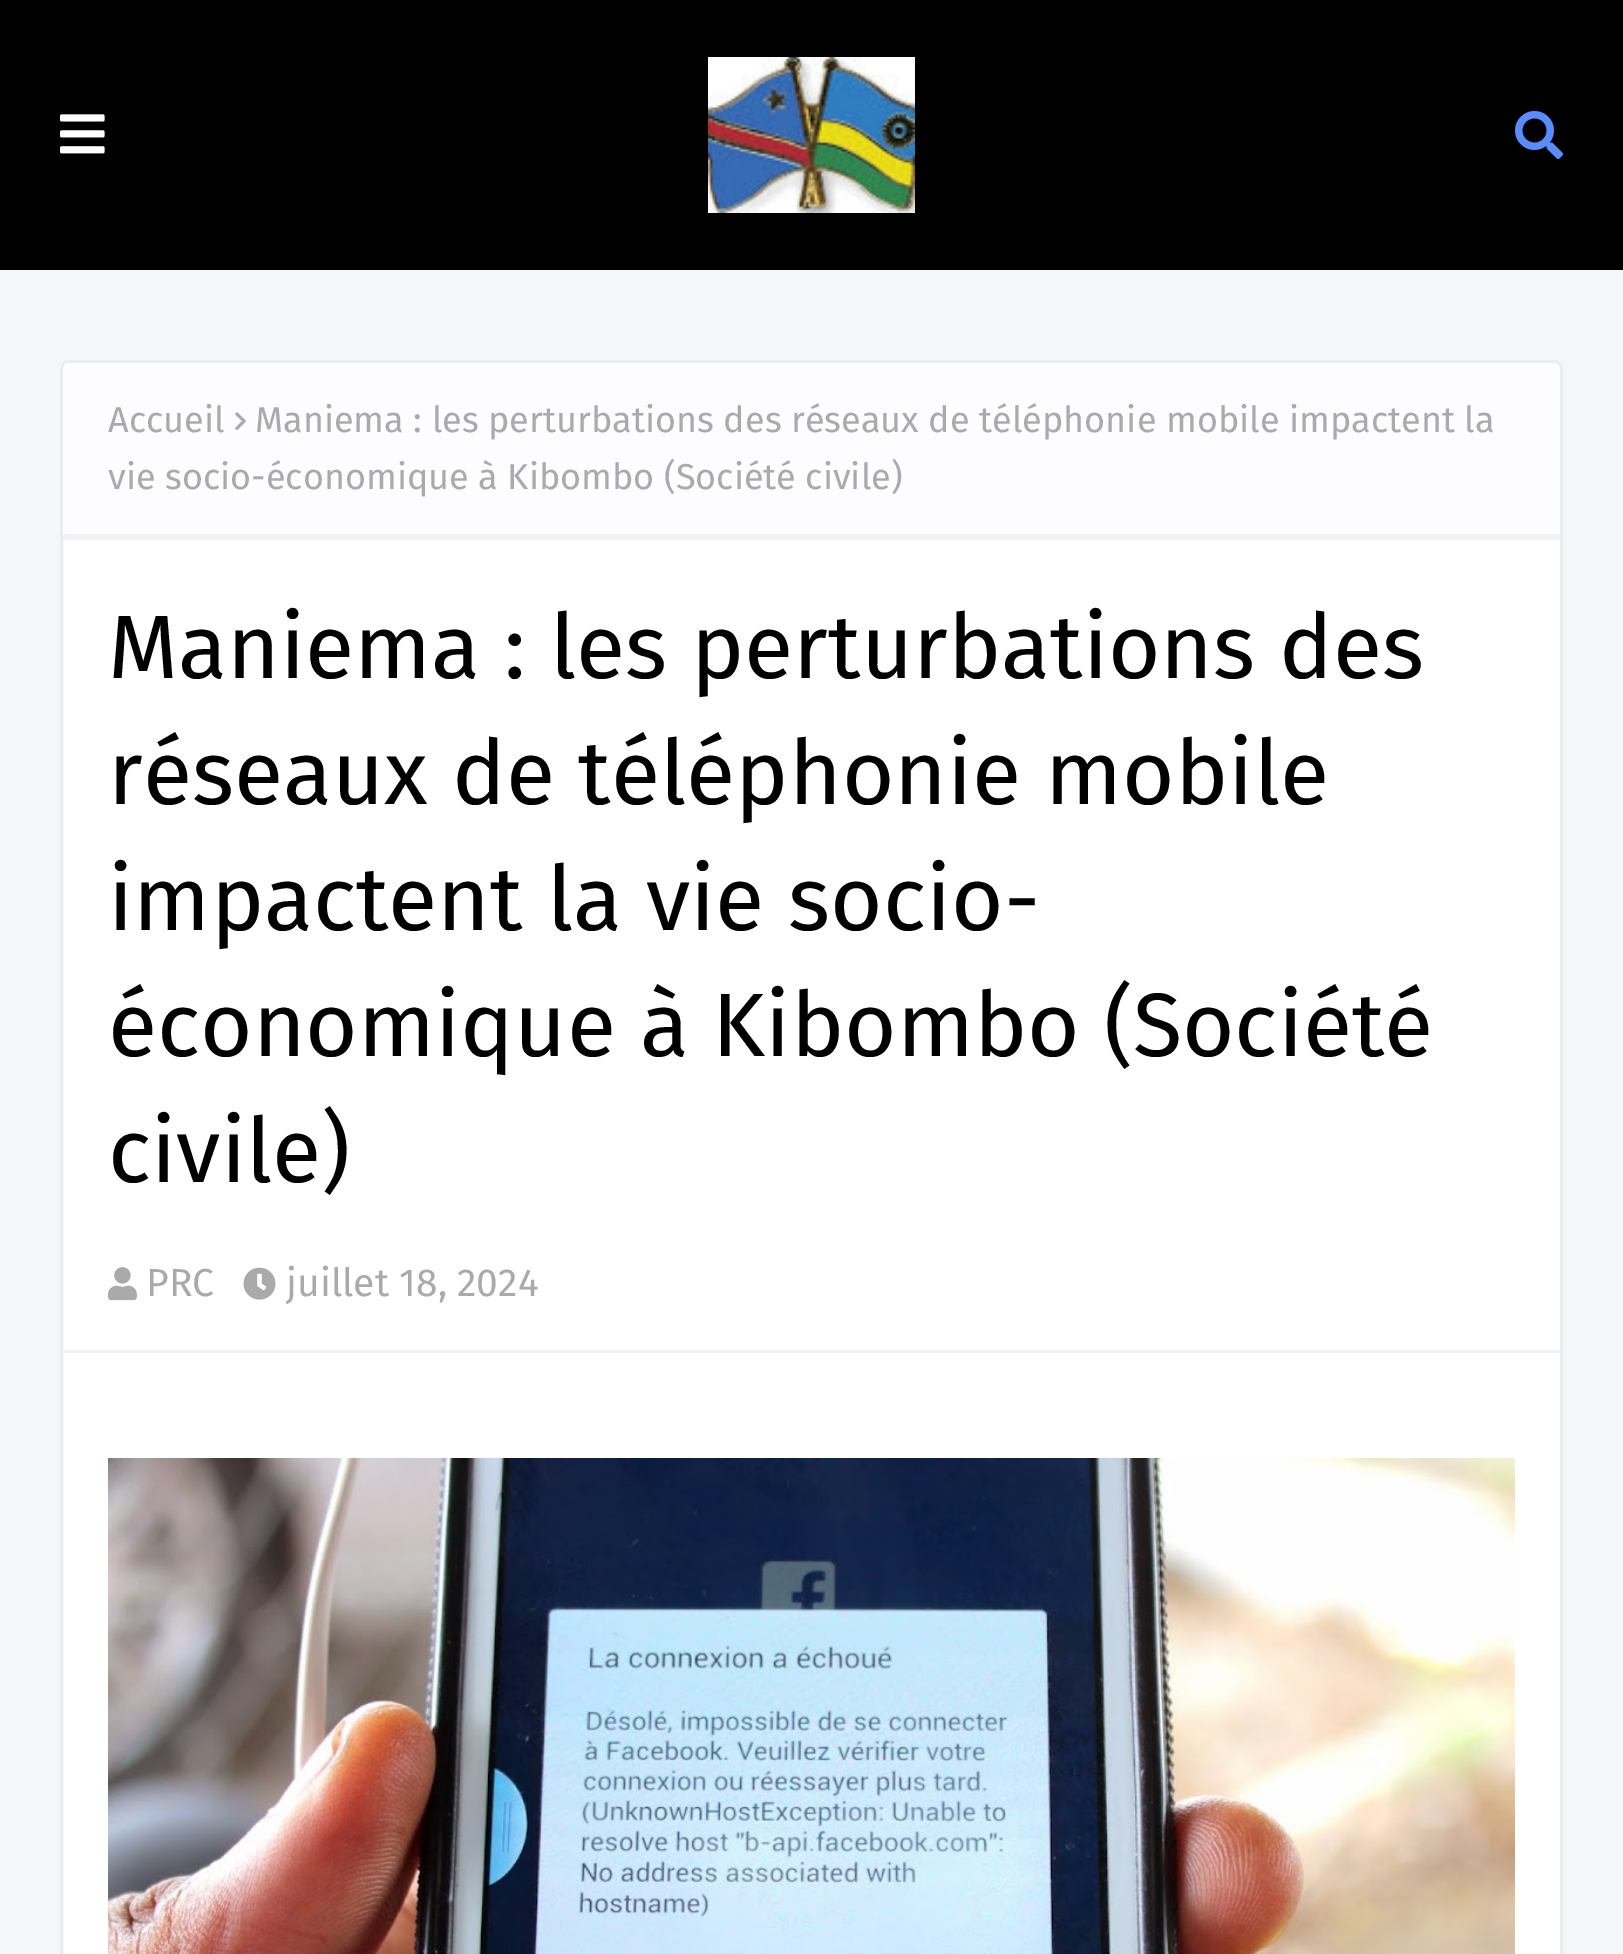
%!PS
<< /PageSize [1623 1954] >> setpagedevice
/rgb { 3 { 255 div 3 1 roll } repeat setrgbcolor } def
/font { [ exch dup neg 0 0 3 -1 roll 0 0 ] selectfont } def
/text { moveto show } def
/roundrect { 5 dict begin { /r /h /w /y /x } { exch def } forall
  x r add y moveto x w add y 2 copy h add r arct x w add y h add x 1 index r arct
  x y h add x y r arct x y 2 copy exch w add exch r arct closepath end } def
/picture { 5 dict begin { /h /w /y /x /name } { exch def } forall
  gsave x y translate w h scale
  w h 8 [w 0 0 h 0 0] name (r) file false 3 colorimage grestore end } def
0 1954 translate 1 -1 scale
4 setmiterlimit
245 246 247 rgb
0 0 1623 1954 rectfill
0 0 0 rgb
0 0 1623 270 rectfill
(img_01.rgb) 60 114 45 40 picture
(img_02.rgb) 708 57 207 156 picture
(img_03.rgb) 1515 111 48 48 picture
255 255 255 rgb
61.5 361.5 1500 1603 7.5 roundrect gsave fill grestore
235 235 243 rgb
3 setlinewidth
stroke
253 253 255 rgb
69 363 moveto 1485 0 rlineto 3.5 0 6 2.5 6 6 rcurveto 0 171 rlineto -1497 0 rlineto 0 -171 rlineto 0 -3.5 2.5 -6 6 -6 rcurveto closepath fill
242 242 246 rgb
63 534 1497 6 rectfill
(img_04.rgb) 235 412 11 18 picture
(img_05.rgb) 108 1267 29 34 picture
(img_06.rgb) 243 1267 33 33 picture
63 1350 1497 3 rectfill
(img_07.rgb) 108 1458 1407 496 picture
/FiraSans-Regular 36 font
170 170 170 rgb
(Accueil) 108 432 text
(Maniema : les perturbations des réseaux de téléphonie mobile impactent la) 255 432 text
(vie socio-économique à Kibombo \(Société civile\)) 108 489 text
/FiraSans-Regular 90 font
0 0 0 rgb
(Maniema : les perturbations des) 108 678 text
(réseaux de téléphonie mobile) 108 804 text
(impactent la vie socio-) 108 930 text
(économique à Kibombo \(Société) 108 1056 text
(civile\)) 108 1182 text
/FiraSans-Regular 39 font
170 170 170 rgb
(PRC) 146 1296 text
(juillet 18, 2024) 286 1296 text
showpage
